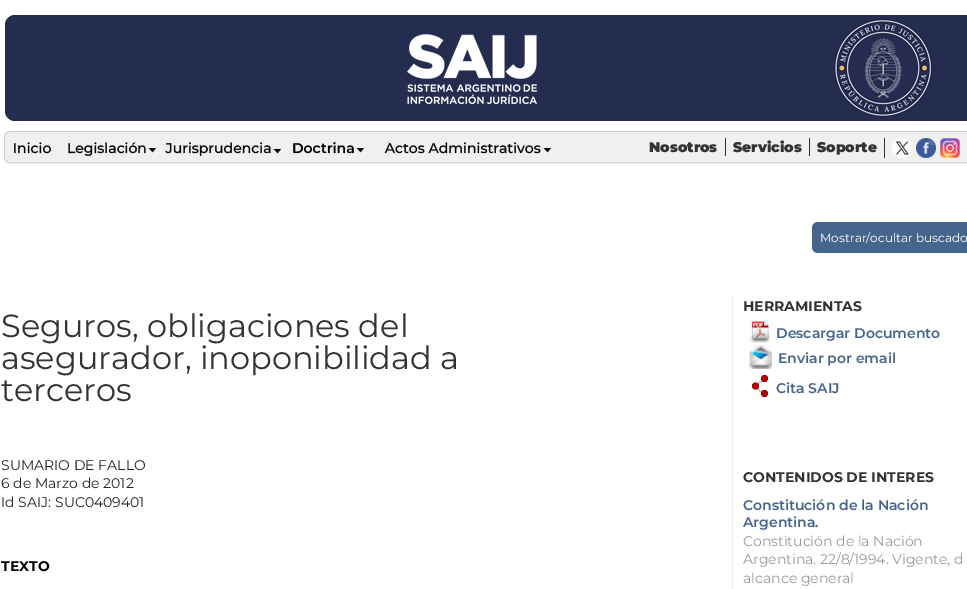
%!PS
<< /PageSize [967 589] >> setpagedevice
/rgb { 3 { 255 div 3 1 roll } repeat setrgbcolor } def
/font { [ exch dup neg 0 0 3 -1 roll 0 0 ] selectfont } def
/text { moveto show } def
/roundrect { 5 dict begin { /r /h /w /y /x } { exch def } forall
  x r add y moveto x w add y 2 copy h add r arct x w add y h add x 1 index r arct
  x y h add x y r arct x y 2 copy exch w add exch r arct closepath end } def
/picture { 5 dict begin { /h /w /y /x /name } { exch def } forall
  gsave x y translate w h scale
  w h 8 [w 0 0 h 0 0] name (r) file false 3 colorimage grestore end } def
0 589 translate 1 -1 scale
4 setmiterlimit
255 255 255 rgb
0 0 967 589 rectfill
36 44 79 rgb
5 15 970 106 10 roundrect fill
(img_01.rgb) 407 34 130 70 picture
(img_02.rgb) 834 19 98 98 picture
(img_03.rgb) 4 131 963 33 picture
(img_04.rgb) 14 142 37 12 picture
(img_05.rgb) 68 142 88 14 picture
(img_06.rgb) 165 142 116 14 picture
(img_07.rgb) 293 142 71 12 picture
(img_08.rgb) 384 142 167 12 picture
51 51 51 rgb
725 138 1 18 rectfill
809 138 1 18 rectfill
884 138 1 20 rectfill
(img_09.rgb) 892 138 20 20 picture
(img_10.rgb) 916 138 20 20 picture
(img_11.rgb) 940 138 20 20 picture
69 101 141 rgb
812 222 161 31 6 roundrect fill
236 236 236 rgb
732 297 1 292 rectfill
(img_12.rgb) 749 320 22 23 picture
(img_13.rgb) 749 345 24 24 picture
(img_14.rgb) 752 375 16 22 picture
/Montserrat-Black 14 font
51 51 51 rgb
(Nosotros) 649 152 text
(Servicios) 733 152 text
(Soporte) 817 152 text
/Montserrat-Regular 12 font
255 255 255 rgb
(Mostrar/ocultar buscado) 820 242 text
/Montserrat-Regular 32 font
51 51 51 rgb
(Seguros, obligaciones del) 1 337 text
(asegurador, inoponibilidad a) 1 369 text
(terceros) 1 401 text
/Montserrat-Regular 14 font
34 34 34 rgb
(SUMARIO DE FALLO) 1 470 text
(6 de Marzo de 2012) 1 488 text
(Id SAIJ: SUC0409401) 1 507 text
/Montserrat-Bold 14 font
0 0 0 rgb
(TEXTO) 1 571 text
51 51 51 rgb
(HERRAMIENTAS) 743 311 text
/Montserrat-SemiBold 14 font
69 101 141 rgb
(Descargar Documento) 776 338 text
(Enviar por email) 778 363 text
(Cita SAIJ) 776 393 text
/Montserrat-Bold 14 font
51 51 51 rgb
(CONTENIDOS DE INTERES) 743 482 text
/Montserrat-SemiBold 14 font
69 101 141 rgb
(Constitución de la Nación) 743 510 text
(Argentina.) 743 527 text
/Montserrat-Regular 14 font
153 153 153 rgb
(Constitución de la Nación) 743 546 text
(Argentina. 22/8/1994. Vigente, d) 743 564 text
(alcance general) 743 583 text
showpage
